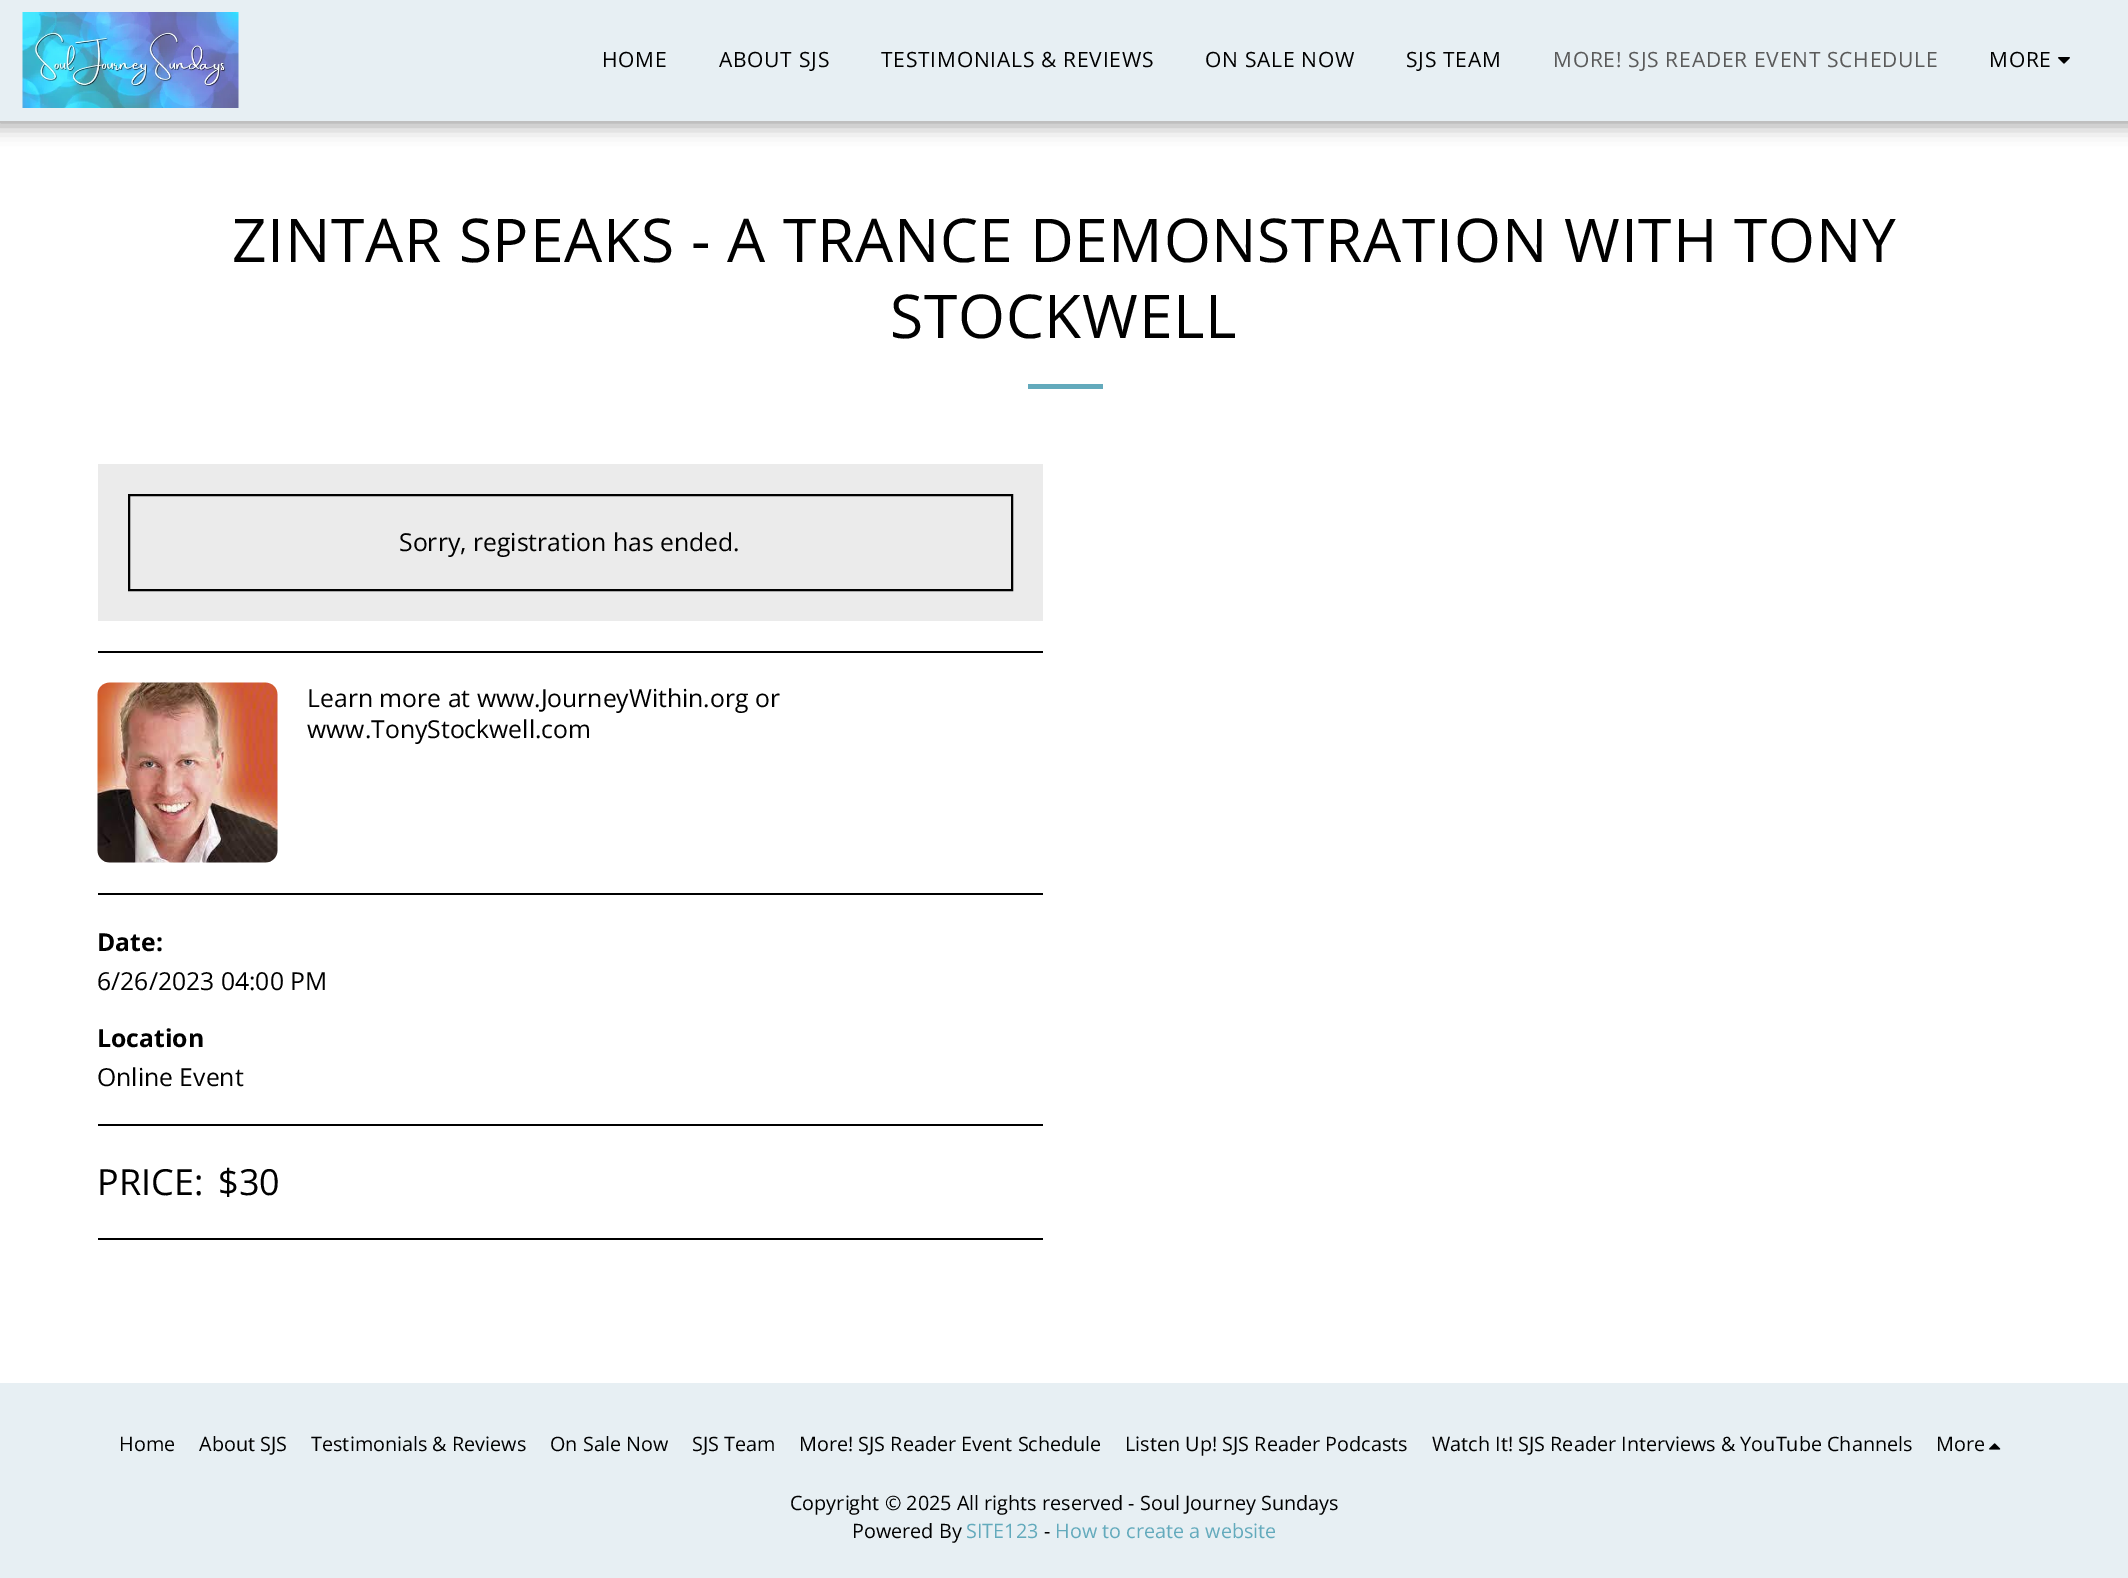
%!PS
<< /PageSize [2128 1578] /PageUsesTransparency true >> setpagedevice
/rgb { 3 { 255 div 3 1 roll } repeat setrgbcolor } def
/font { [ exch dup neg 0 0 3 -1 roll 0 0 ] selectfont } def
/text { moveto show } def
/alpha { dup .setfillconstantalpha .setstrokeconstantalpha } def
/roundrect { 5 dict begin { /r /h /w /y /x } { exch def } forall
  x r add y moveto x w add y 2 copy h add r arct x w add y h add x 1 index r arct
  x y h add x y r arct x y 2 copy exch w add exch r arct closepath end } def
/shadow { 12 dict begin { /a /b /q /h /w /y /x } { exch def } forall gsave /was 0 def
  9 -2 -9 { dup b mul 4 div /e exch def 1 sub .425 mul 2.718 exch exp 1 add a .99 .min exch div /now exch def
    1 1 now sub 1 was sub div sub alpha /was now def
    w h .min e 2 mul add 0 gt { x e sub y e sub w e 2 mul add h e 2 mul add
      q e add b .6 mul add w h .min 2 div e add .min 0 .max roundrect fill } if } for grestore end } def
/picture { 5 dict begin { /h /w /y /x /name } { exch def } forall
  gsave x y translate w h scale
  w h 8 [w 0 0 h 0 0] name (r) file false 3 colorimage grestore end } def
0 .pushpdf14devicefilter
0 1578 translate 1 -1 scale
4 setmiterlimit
255 255 255 rgb
0 0 2128 1578 rectfill
0 0 0 rgb
-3 0 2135 126 0 9 0.35 shadow
231 239 243 rgb
0 0 2128 121 rectfill
(img_01.rgb) 22 12 217 96 picture
(img_02.rgb) 2058 57 12 7 picture
99 170 188 rgb
1028 384 75 5 rectfill
235 235 235 rgb
98 464 945 157 rectfill
0 0 0 rgb
2 setlinewidth
129 495 883 95 rectstroke
98 651 945 2 rectfill
(img_03.rgb) 97 682 181 181 picture
98 893 945 2 rectfill
98 1124 945 2 rectfill
98 1238 945 2 rectfill
231 239 243 rgb
0 1383 2128 195 rectfill
(img_04.rgb) 1989 1443 12 7 picture
/OpenSans-Regular 21 font
0 0 0 rgb
602 67 moveto 0.75 0 (HOME) ashow
719 67 moveto 0.75 0 (ABOUT SJS) ashow
881 67 moveto 0.75 0 (TESTIMONIALS & REVIEWS) ashow
1205 67 moveto 0.75 0 (ON SALE NOW) ashow
1406 67 moveto 0.75 0 (SJS TEAM) ashow
90 90 90 rgb
1553 67 moveto 0.75 0 (MORE! SJS READER EVENT SCHEDULE) ashow
0 0 0 rgb
1989 67 moveto 0.75 0 (MORE) ashow
/OpenSans-Regular 60.4 font
232 262 moveto 0.75 0 (ZINTAR SPEAKS - A TRANCE DEMONSTRATION WITH TONY) ashow
890 338 moveto 0.75 0 (STOCKWELL) ashow
/OpenSans-Regular 24.75 font
(Sorry, registration has ended.) 399 551 text
(Learn more at www.JourneyWithin.org or) 307 707 text
(www.TonyStockwell.com) 307 738 text
/OpenSans-Bold 24.75 font
(Date:) 97 951 text
/OpenSans-Regular 24.75 font
(6/26/2023 04:00 PM) 97 990 text
/OpenSans-Bold 24.75 font
(Location) 97 1047 text
/OpenSans-Regular 24.75 font
(Online Event) 97 1086 text
/OpenSans-Regular 36 font
(PRICE:) 97 1195 text
($30) 218 1195 text
/OpenSans-Regular 19.8 font
(Home) 119 1451 text
(About SJS) 199 1451 text
(Testimonials & Reviews) 311 1451 text
(On Sale Now) 550 1451 text
(SJS Team) 692 1451 text
(More! SJS Reader Event Schedule) 799 1451 text
(Listen Up! SJS Reader Podcasts) 1125 1451 text
(Watch It! SJS Reader Interviews & YouTube Channels) 1432 1451 text
(More) 1936 1451 text
(Copyright © 2025 All rights reserved -) 790 1510 text
(Soul Journey Sundays) 1140 1510 text
(Powered By) 852 1538 text
99 170 188 rgb
(SITE123) 966 1538 text
0 0 0 rgb
(-) 1044 1538 text
99 170 188 rgb
(How to create a website) 1055 1538 text
.poppdf14devicefilter showpage
